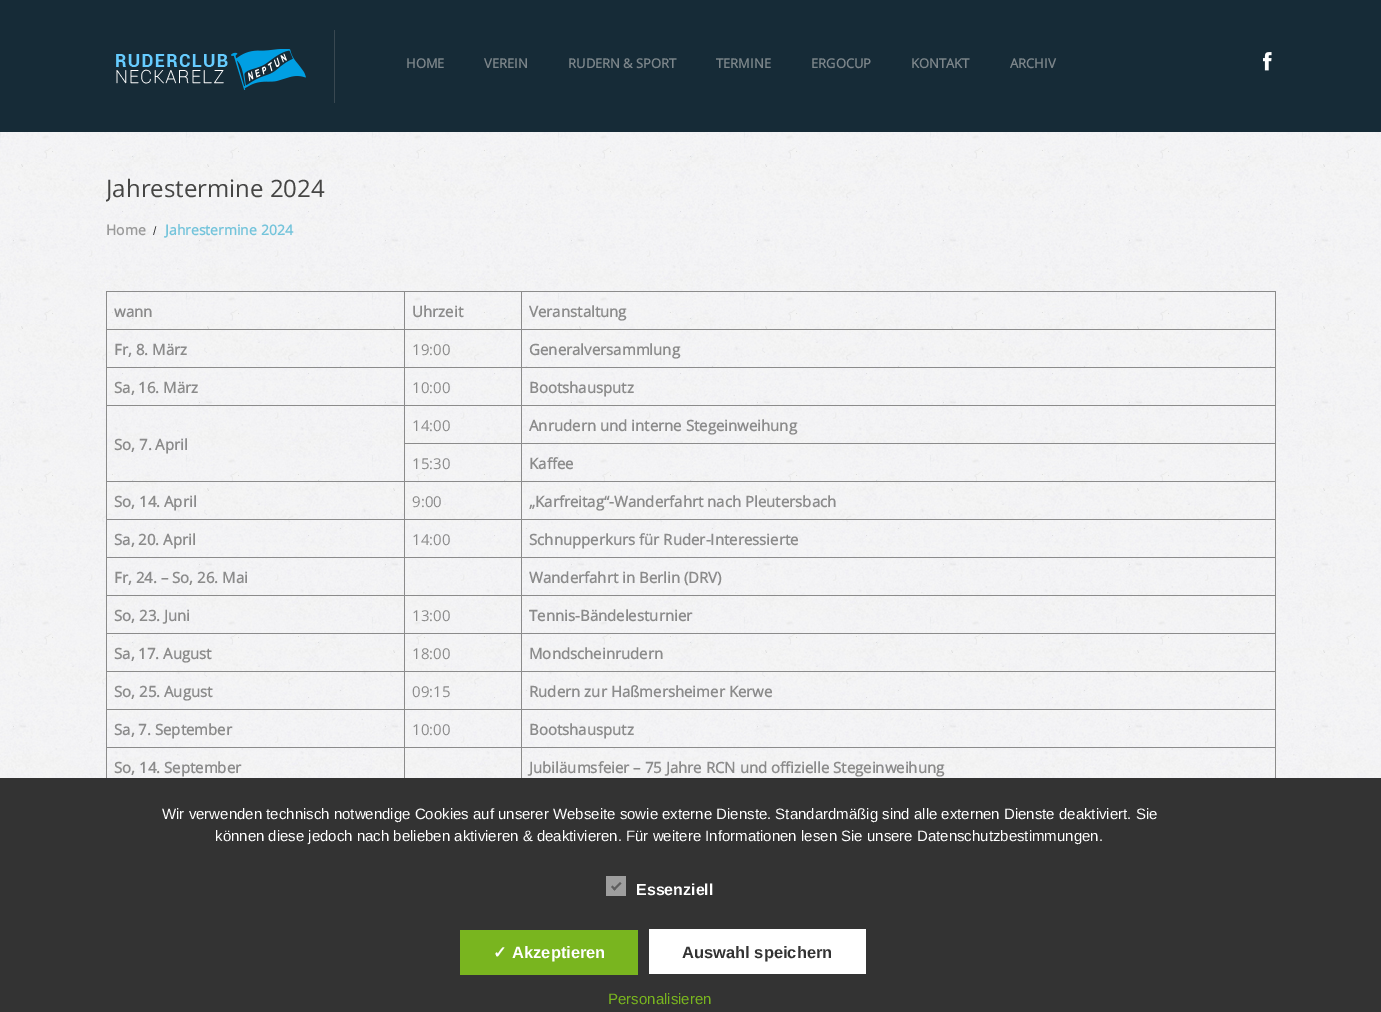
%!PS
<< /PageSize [1381 1012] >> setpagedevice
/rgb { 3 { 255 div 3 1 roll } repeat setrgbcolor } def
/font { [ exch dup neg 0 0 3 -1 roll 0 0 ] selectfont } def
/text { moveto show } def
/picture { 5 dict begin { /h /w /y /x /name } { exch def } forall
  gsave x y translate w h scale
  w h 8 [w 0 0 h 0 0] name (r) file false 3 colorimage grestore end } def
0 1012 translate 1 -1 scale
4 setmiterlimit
255 255 255 rgb
0 0 1381 1012 rectfill
(img_01.rgb) 0 132 1381 646 picture
22 43 55 rgb
0 0 1381 132 rectfill
57 72 81 rgb
334 30 1 73 rectfill
(img_02.rgb) 116 49 190 41 picture
(img_03.rgb) 1263 52 9 19 picture
139 139 139 rgb
521 291 755 1 rectfill
521 329 755 1 rectfill
521 367 755 1 rectfill
521 405 755 1 rectfill
521 443 755 1 rectfill
521 481 755 1 rectfill
521 519 755 1 rectfill
521 557 755 1 rectfill
521 595 755 1 rectfill
521 633 755 1 rectfill
521 671 755 1 rectfill
521 709 755 1 rectfill
521 747 755 1 rectfill
521 747 1 39 rectfill
404 747 118 1 rectfill
521 709 1 39 rectfill
404 709 118 1 rectfill
521 671 1 39 rectfill
404 671 118 1 rectfill
521 633 1 39 rectfill
404 633 118 1 rectfill
521 595 1 39 rectfill
404 595 118 1 rectfill
521 557 1 39 rectfill
404 557 118 1 rectfill
521 519 1 39 rectfill
404 519 118 1 rectfill
521 481 1 39 rectfill
404 481 118 1 rectfill
521 443 1 39 rectfill
404 443 118 1 rectfill
521 405 1 39 rectfill
404 405 118 1 rectfill
521 367 1 39 rectfill
404 367 118 1 rectfill
521 329 1 39 rectfill
404 329 118 1 rectfill
521 291 1 39 rectfill
404 291 118 1 rectfill
404 747 1 39 rectfill
106 747 299 1 rectfill
404 709 1 39 rectfill
106 709 299 1 rectfill
404 671 1 39 rectfill
106 671 299 1 rectfill
404 633 1 39 rectfill
106 633 299 1 rectfill
404 595 1 39 rectfill
106 595 299 1 rectfill
404 557 1 39 rectfill
106 557 299 1 rectfill
404 519 1 39 rectfill
106 519 299 1 rectfill
404 481 1 39 rectfill
106 481 299 1 rectfill
404 443 1 39 rectfill
404 405 1 39 rectfill
106 405 299 1 rectfill
404 367 1 39 rectfill
106 367 299 1 rectfill
404 329 1 39 rectfill
106 329 299 1 rectfill
404 291 1 39 rectfill
106 291 299 1 rectfill
106 747 1 39 rectfill
106 709 1 39 rectfill
106 671 1 39 rectfill
106 633 1 39 rectfill
106 595 1 39 rectfill
106 557 1 39 rectfill
106 519 1 39 rectfill
106 481 1 39 rectfill
106 405 1 77 rectfill
106 367 1 39 rectfill
106 329 1 39 rectfill
106 291 1 39 rectfill
1275 747 1 39 rectfill
1275 709 1 39 rectfill
1275 671 1 39 rectfill
1275 633 1 39 rectfill
1275 595 1 39 rectfill
1275 557 1 39 rectfill
1275 519 1 39 rectfill
1275 481 1 39 rectfill
1275 443 1 39 rectfill
1275 405 1 39 rectfill
1275 367 1 39 rectfill
1275 329 1 39 rectfill
1275 291 1 39 rectfill
51 51 51 rgb
0 778 1381 234 rectfill
158 158 158 rgb
606 876 20 20 rectfill
94 94 94 rgb
620 882 moveto 1.5 1.5 rlineto -7 7 rlineto -1.5 -1.5 rlineto closepath fill
612.5 885.5 moveto 3.5 3.5 rlineto -1.5 1.5 rlineto -3.5 -3.5 rlineto closepath fill
121 181 31 rgb
460 930 178 45 rectfill
255 255 255 rgb
649 929 217 45 rectfill
/OpenSans-Bold 13 font
124 133 138 rgb
(HOME) 406 68 text
(VEREIN) 484 68 text
(RUDERN & SPORT) 568 68 text
(TERMINE) 716 68 text
(ERGOCUP) 811 68 text
(KONTAKT) 911 68 text
(ARCHIV) 1010 68 text
gsave
106 172 1170 32 rectclip
/OpenSans-Regular 24 font
69 69 68 rgb
(Jahrestermine 2024) 106 197 text
grestore
/OpenSans-Bold 14 font
154 154 154 rgb
(Home) 106 235 text
/LiberationSans-Regular 12 font
51 51 51 rgb
(/) 153 235 text
/OpenSans-Bold 14 font
116 196 219 rgb
(Jahrestermine 2024) 165 235 text
/OpenSans-Bold 15 font
139 139 139 rgb
(wann) 114 317 text
(Uhrzeit) 412 317 text
(Veranstaltung) 529 317 text
(Fr, 8. März) 114 355 text
/OpenSans-Regular 15 font
(19:00) 412 355 text
/OpenSans-Bold 15 font
(Generalversammlung) 529 355 text
(Sa, 16. März) 114 393 text
/OpenSans-Regular 15 font
(10:00) 412 393 text
/OpenSans-Bold 15 font
(Bootshausputz) 529 393 text
/OpenSans-Regular 15 font
(14:00) 412 431 text
/OpenSans-Bold 15 font
(Anrudern und interne Stegeinweihung) 529 431 text
(So, 7. April) 114 450 text
/OpenSans-Regular 15 font
(15:30) 412 469 text
/OpenSans-Bold 15 font
(Kaffee) 529 469 text
(So, 14. April) 114 507 text
/OpenSans-Regular 15 font
(9:00) 412 507 text
/OpenSans-Bold 15 font
(„Karfreitag“-Wanderfahrt nach Pleutersbach) 529 507 text
(Sa, 20. April) 114 545 text
/OpenSans-Regular 15 font
(14:00) 412 545 text
/OpenSans-Bold 15 font
(Schnupperkurs für Ruder-Interessierte) 529 545 text
(Fr, 24. – So, 26. Mai) 114 583 text
(Wanderfahrt in Berlin \(DRV\)) 529 583 text
(So, 23. Juni) 114 621 text
/OpenSans-Regular 15 font
(13:00) 412 621 text
/OpenSans-Bold 15 font
(Tennis-Bändelesturnier) 529 621 text
(Sa, 17. August) 114 659 text
/OpenSans-Regular 15 font
(18:00) 412 659 text
/OpenSans-Bold 15 font
(Mondscheinrudern) 529 659 text
(So, 25. August) 114 697 text
/OpenSans-Regular 15 font
(09:15) 412 697 text
/OpenSans-Bold 15 font
(Rudern zur Haßmersheimer Kerwe) 529 697 text
(Sa, 7. September) 114 735 text
/OpenSans-Regular 15 font
(10:00) 412 735 text
/OpenSans-Bold 15 font
(Bootshausputz) 529 735 text
(So, 14. September) 114 773 text
(Jubiläumsfeier – 75 Jahre RCN und offizielle Stegeinweihung) 529 773 text
/LiberationSans-Regular 15 font
255 255 255 rgb
(Wir verwenden technisch notwendige Cookies auf unserer Webseite sowie externe Dienste. Standardmäßig sind alle externen Dienste deaktiviert. Sie) 162 819 text
(können diese jedoch nach belieben aktivieren & deaktivieren. Für weitere Informationen lesen Sie unsere Datenschutzbestimmungen.) 215 841 text
/LiberationSans-Bold 16 font
(Essenziell) 636 895 text
/DejaVuSans-Bold 16.5 font
(✓) 493 958 text
/LiberationSans-Bold 16.5 font
(Akzeptieren) 512 958 text
51 51 51 rgb
(Auswahl speichern) 682 958 text
/LiberationSans-Regular 15 font
121 181 31 rgb
(Personalisieren) 608 1004 text
showpage
